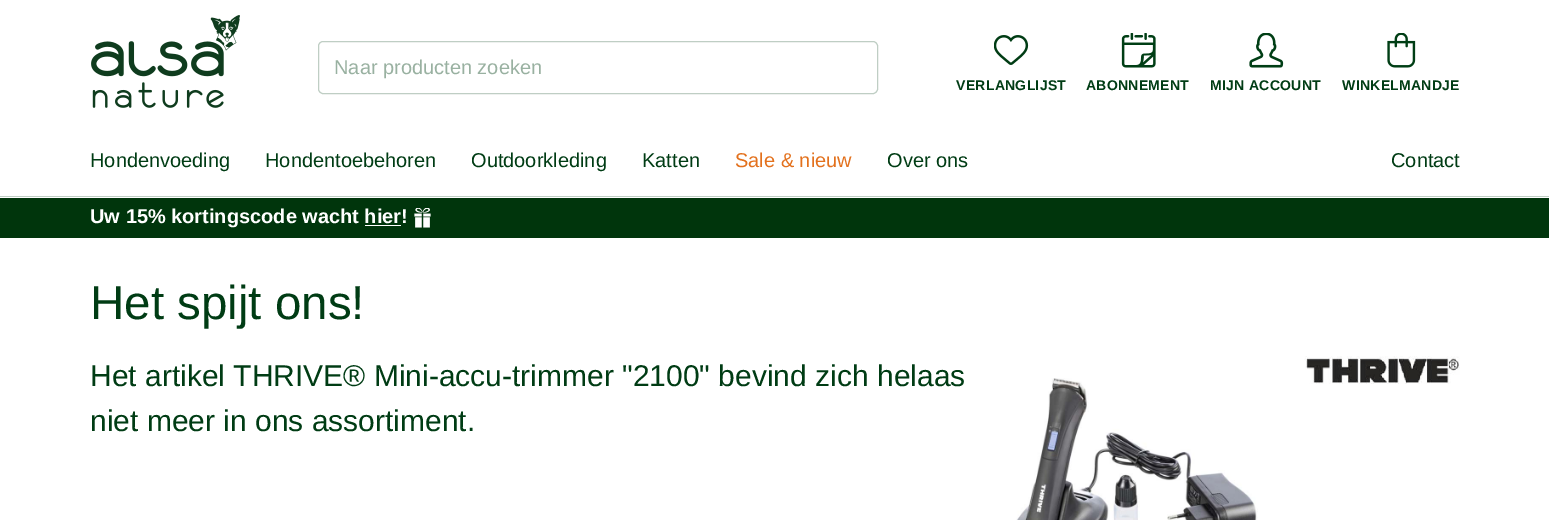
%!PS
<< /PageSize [1549 520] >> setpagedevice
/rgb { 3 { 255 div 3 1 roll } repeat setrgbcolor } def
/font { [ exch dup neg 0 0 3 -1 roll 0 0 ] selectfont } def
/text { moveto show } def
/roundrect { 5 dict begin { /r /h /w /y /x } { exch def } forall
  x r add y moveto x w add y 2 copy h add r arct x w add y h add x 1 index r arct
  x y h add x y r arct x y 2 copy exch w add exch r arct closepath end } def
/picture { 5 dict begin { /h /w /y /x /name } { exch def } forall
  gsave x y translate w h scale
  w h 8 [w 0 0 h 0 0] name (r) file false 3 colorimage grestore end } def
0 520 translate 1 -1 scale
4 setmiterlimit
255 255 255 rgb
0 0 1549 520 rectfill
191 206 196 rgb
0 196 1549 1 rectfill
(img_01.rgb) 91 15 149 93 picture
318.5 41.5 559 52 4.5 roundrect stroke
(img_02.rgb) 994 35 35 30 picture
(img_03.rgb) 1121 33 35 35 picture
(img_04.rgb) 1249 33 35 35 picture
(img_05.rgb) 1387 33 29 35 picture
0 53 12 rgb
0 198 1549 40 rectfill
(img_06.rgb) 414 208 17 20 picture
255 255 255 rgb
365 225 36 1 rectfill
(img_07.rgb) 1304 356 156 28 picture
(img_08.rgb) 1016 378 242 142 picture
/LiberationSans-Regular 20 font
153 177 161 rgb
(Naar producten zoeken) 334 74 text
/LiberationSans-Bold 14 font
0 60 20 rgb
956 90 moveto 0.3 0 (VERLANGLIJST) ashow
1086 90 moveto 0.3 0 (ABONNEMENT) ashow
1210 90 moveto 0.3 0 (MIJN ACCOUNT) ashow
1342 90 moveto 0.3 0 (WINKELMANDJE) ashow
/LiberationSans-Regular 20 font
(Hondenvoeding) 90 167 text
(Hondentoebehoren) 265 167 text
(Outdoorkleding) 471 167 text
(Katten) 642 167 text
227 113 29 rgb
(Sale & nieuw) 735 167 text
0 60 20 rgb
(Over ons) 887 167 text
(Contact) 1391 167 text
/LiberationSans-Bold 20 font
255 255 255 rgb
(Uw 15% kortingscode wacht hier!) 90 223 text
/LiberationSans-Regular 47.5 font
0 60 20 rgb
(Het spijt ons!) 90 319 text
/LiberationSans-Regular 30 font
(Het artikel THRIVE® Mini-accu-trimmer "2100" bevind zich helaas) 90 386 text
(niet meer in ons assortiment.) 90 431 text
showpage
